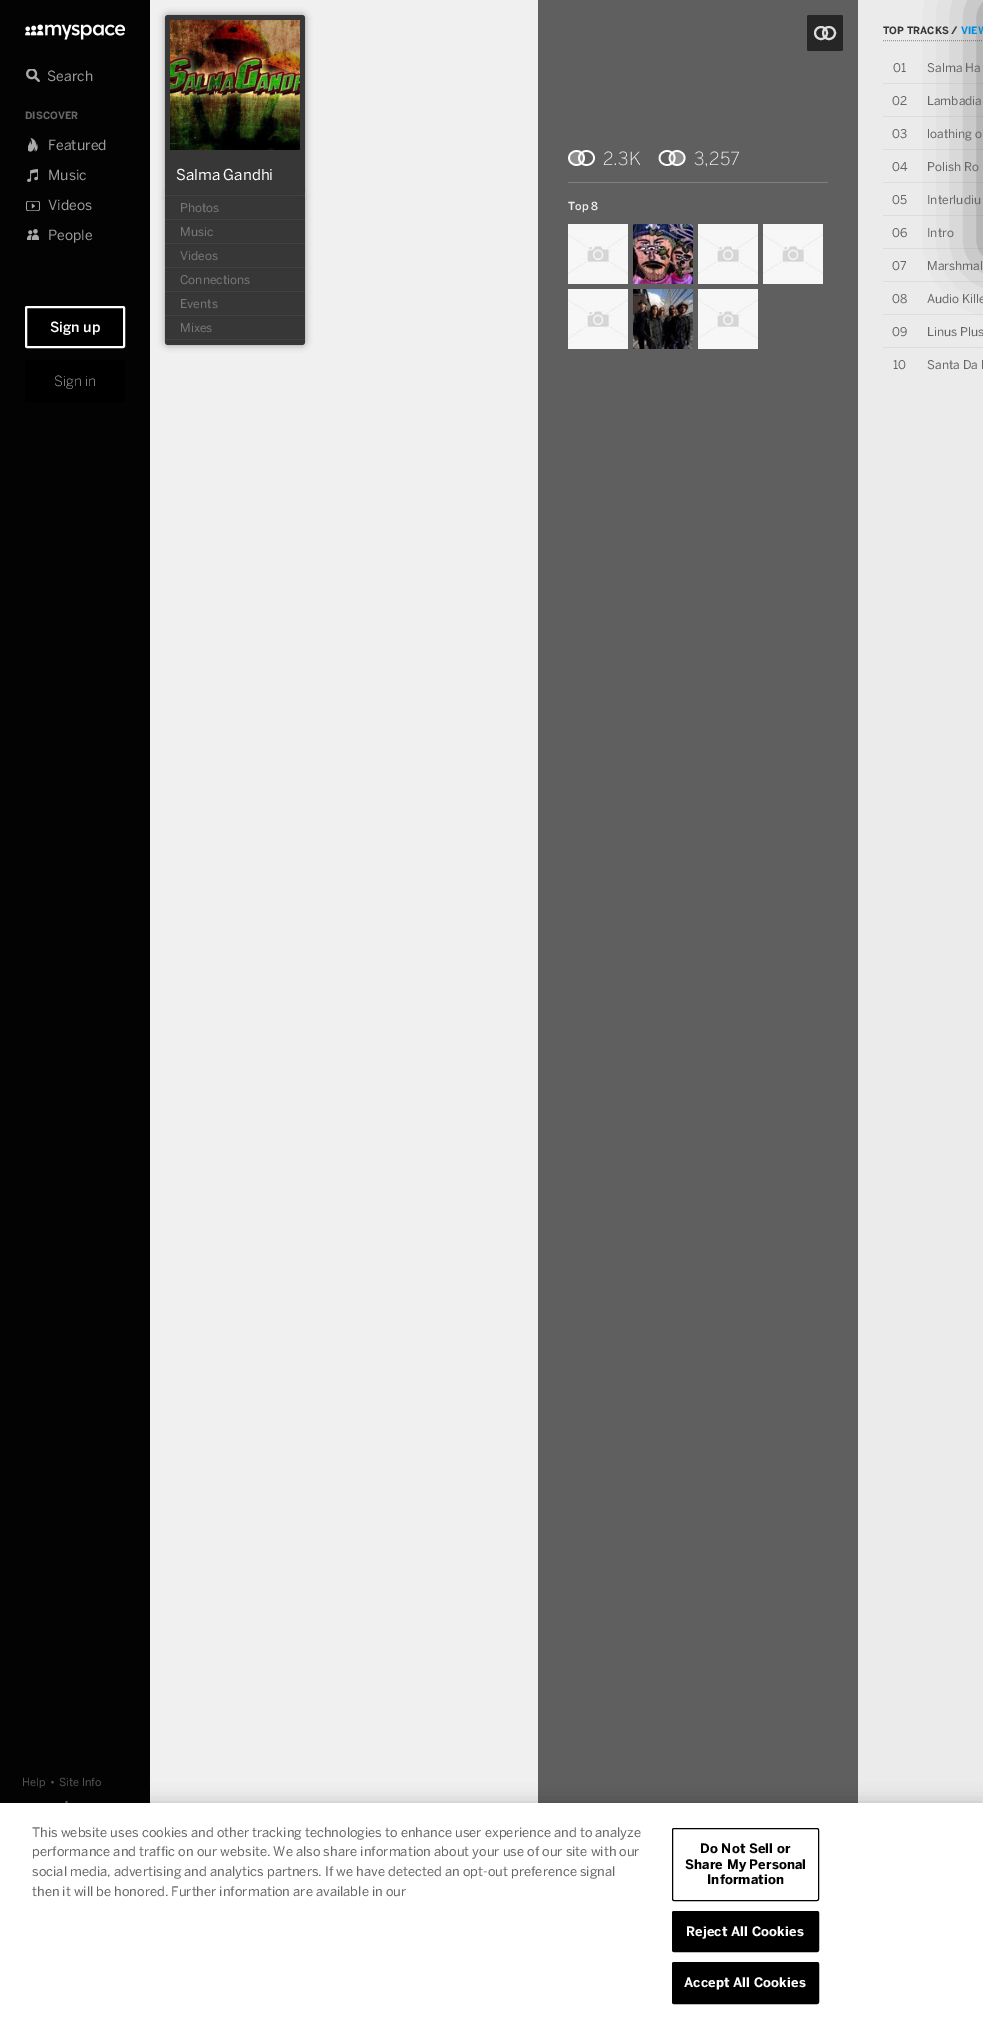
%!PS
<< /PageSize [983 2024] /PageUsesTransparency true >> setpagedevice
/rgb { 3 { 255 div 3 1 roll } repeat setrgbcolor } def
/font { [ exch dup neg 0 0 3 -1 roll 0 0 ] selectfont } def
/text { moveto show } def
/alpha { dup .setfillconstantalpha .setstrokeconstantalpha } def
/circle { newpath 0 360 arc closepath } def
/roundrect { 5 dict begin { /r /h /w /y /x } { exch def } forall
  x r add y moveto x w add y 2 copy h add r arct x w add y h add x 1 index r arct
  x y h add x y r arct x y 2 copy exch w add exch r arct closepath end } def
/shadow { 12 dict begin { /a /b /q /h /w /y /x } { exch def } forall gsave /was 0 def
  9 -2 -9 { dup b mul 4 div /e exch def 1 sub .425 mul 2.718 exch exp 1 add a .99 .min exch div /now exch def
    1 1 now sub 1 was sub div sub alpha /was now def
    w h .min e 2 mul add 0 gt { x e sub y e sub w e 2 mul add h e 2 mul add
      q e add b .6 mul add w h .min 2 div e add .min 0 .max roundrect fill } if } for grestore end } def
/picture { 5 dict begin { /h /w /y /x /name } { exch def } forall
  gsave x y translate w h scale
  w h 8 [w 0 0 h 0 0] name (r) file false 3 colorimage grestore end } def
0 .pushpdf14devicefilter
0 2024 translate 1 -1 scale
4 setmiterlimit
240 240 240 rgb
0 0 983 2024 rectfill
235 235 235 rgb
858 0 125 1803 rectfill
153 153 153 rgb
[1 1] 0 setdash
883 40.5 moveto 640 0 rlineto stroke
221 221 221 rgb
883 83 100 1 rectfill
883 116 100 1 rectfill
883 149 100 1 rectfill
883 182 100 1 rectfill
883 215 100 1 rectfill
883 248 100 1 rectfill
883 281 100 1 rectfill
883 314 100 1 rectfill
0 0 0 rgb
983 0 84 258 3 27 0.45 shadow
3 3 3 rgb
0 0 150 1803 rectfill
(img_01.rgb) 25 24 100 16 picture
(img_02.rgb) 26 69 14 13 picture
(img_03.rgb) 28 138 10 14 picture
(img_04.rgb) 27 169 11 13 picture
(img_05.rgb) 26 201 14 10 picture
(img_06.rgb) 27 229 12 11 picture
0 0 0 rgb
26 307 98 40 1 roundrect gsave fill grestore
255 255 255 rgb
2 setlinewidth
[] 0 setdash
stroke
0 0 0 rgb
25 360 100 42 2 roundrect fill
50 50 50 rgb
165 15 140 180 3 3.5 0.45 shadow
55 55 55 rgb
168 15 moveto 134 0 rlineto 1.5 0 3 1.5 3 3 rcurveto 0 177 rlineto -140 0 rlineto 0 -177 rlineto 0 -1.5 1.5 -3 3 -3 rcurveto closepath fill
(img_07.rgb) 170 20 130 130 picture
50 50 50 rgb
165 195 140 150 3 3.5 0.45 shadow
55 55 55 rgb
165 195 moveto 140 0 rlineto 0 147 rlineto 0 1.5 -1.5 3 -3 3 rcurveto -134 0 rlineto -1.5 0 -3 -1.5 -3 -3 rcurveto closepath fill
66 66 66 rgb
165 195 140 1 rectfill
165 339 140 1 rectfill
165 219 140 1 rectfill
165 243 140 1 rectfill
165 267 140 1 rectfill
165 291 140 1 rectfill
165 315 140 1 rectfill
95 95 95 rgb
538 0 320 1803 rectfill
38 38 38 rgb
807 15 36 36 2 roundrect fill
221 221 221 rgb
829 33 6 circle stroke
821 33 6 circle stroke
(img_08.rgb) 568 150 27 16 picture
(img_09.rgb) 658 150 28 16 picture
127 127 127 rgb
568 182 260 1 rectfill
(img_10.rgb) 568 224 60 60 picture
(img_11.rgb) 633 224 60 60 picture
(img_12.rgb) 698 224 60 60 picture
(img_13.rgb) 763 224 60 60 picture
(img_14.rgb) 568 289 60 60 picture
(img_15.rgb) 633 289 60 60 picture
(img_16.rgb) 698 289 60 60 picture
221 221 221 rgb
883 347 100 1 rectfill
0 0 0 rgb
0 1803 983 221 0 9 0.2 shadow
/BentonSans-Regular 14 font
155 155 155 rgb
(Search) 47 81 text
/BentonSans-Bold 10 font
102 102 102 rgb
(DISCOVER) 25 119 text
/BentonSans-Regular 14 font
155 155 155 rgb
(Featured) 48 150 text
(Music) 48 180 text
(Videos) 48 210 text
(People) 48 240 text
/BentonSans-Medium 14 font
255 255 255 rgb
(Sign up) 50 332 text
/BentonSans-Light 14 font
170 170 170 rgb
(Sign in) 54 386 text
/BentonSans-Regular 11 font
85 85 85 rgb
(Help) 22 1786 text
(•) 50 1786 text
(Site Info) 59 1786 text
(•) 64 1806 text
/BentonSans-Regular 15 font
255 255 255 rgb
(Salma Gandhi) 176 180 text
/BentonSans-Regular 12 font
120 120 120 rgb
(Photos) 180 212 text
(Music) 180 236 text
(Videos) 180 260 text
(Connections) 180 284 text
(Events) 180 308 text
(Mixes) 180 332 text
/BentonSans-Light 18 font
238 238 238 rgb
(2.3K) 603 165 text
(3,257) 694 165 text
/BentonSans-Medium 11 font
(Top 8) 568 210 text
/BentonSans-Bold 10 font
55 55 55 rgb
(TOP TRACKS /) 883 34 text
0 141 222 rgb
(VIEW) 961 34 text
/BentonSans-Regular 12 font
102 102 102 rgb
(01) 893 72 text
(Salma Ha) 927 72 text
(02) 892 105 text
(Lambadia) 927 105 text
(03) 892 138 text
(loathing o) 927 138 text
(04) 892 171 text
(Polish Ro) 927 171 text
(05) 892 204 text
(Interludiu) 927 204 text
(06) 892 237 text
(Intro) 927 237 text
(07) 892 270 text
(Marshmal) 927 270 text
(08) 892 303 text
(Audio Kille) 927 303 text
(09) 892 336 text
(Linus Plus) 927 336 text
(10) 893 369 text
(Santa Da L) 927 369 text
255 255 255 rgb
0 1803 983 221 rectfill
/BentonSans-Regular 13 font
102 102 102 rgb
(This website uses cookies and other tracking technologies to enhance user experience and to analyze) 32 1837 text
(performance and traffic on our website. We also share information about your use of our site with our) 32 1856 text
(social media, advertising and analytics partners. If we have detected an opt-out preference signal) 32 1876 text
(then it will be honored. Further information are available in our) 32 1896 text
0 0 0 rgb
1 setlinewidth
672.5 1828.5 146 72 1.5 roundrect stroke
/BentonSans-Bold 13 font
700 1853 moveto 0.1 0 (Do Not Sell or) ashow
685 1869 moveto 0.1 0 (Share My Personal) ashow
707 1884 moveto 0.1 0 (Information) ashow
672.5 1911.5 146 40 1.5 roundrect gsave fill grestore
stroke
255 255 255 rgb
686 1936 moveto 0.1 0 (Reject All Cookies) ashow
0 0 0 rgb
672.5 1962.5 146 41 1.5 roundrect gsave fill grestore
stroke
255 255 255 rgb
684 1987 moveto 0.1 0 (Accept All Cookies) ashow
.poppdf14devicefilter showpage
